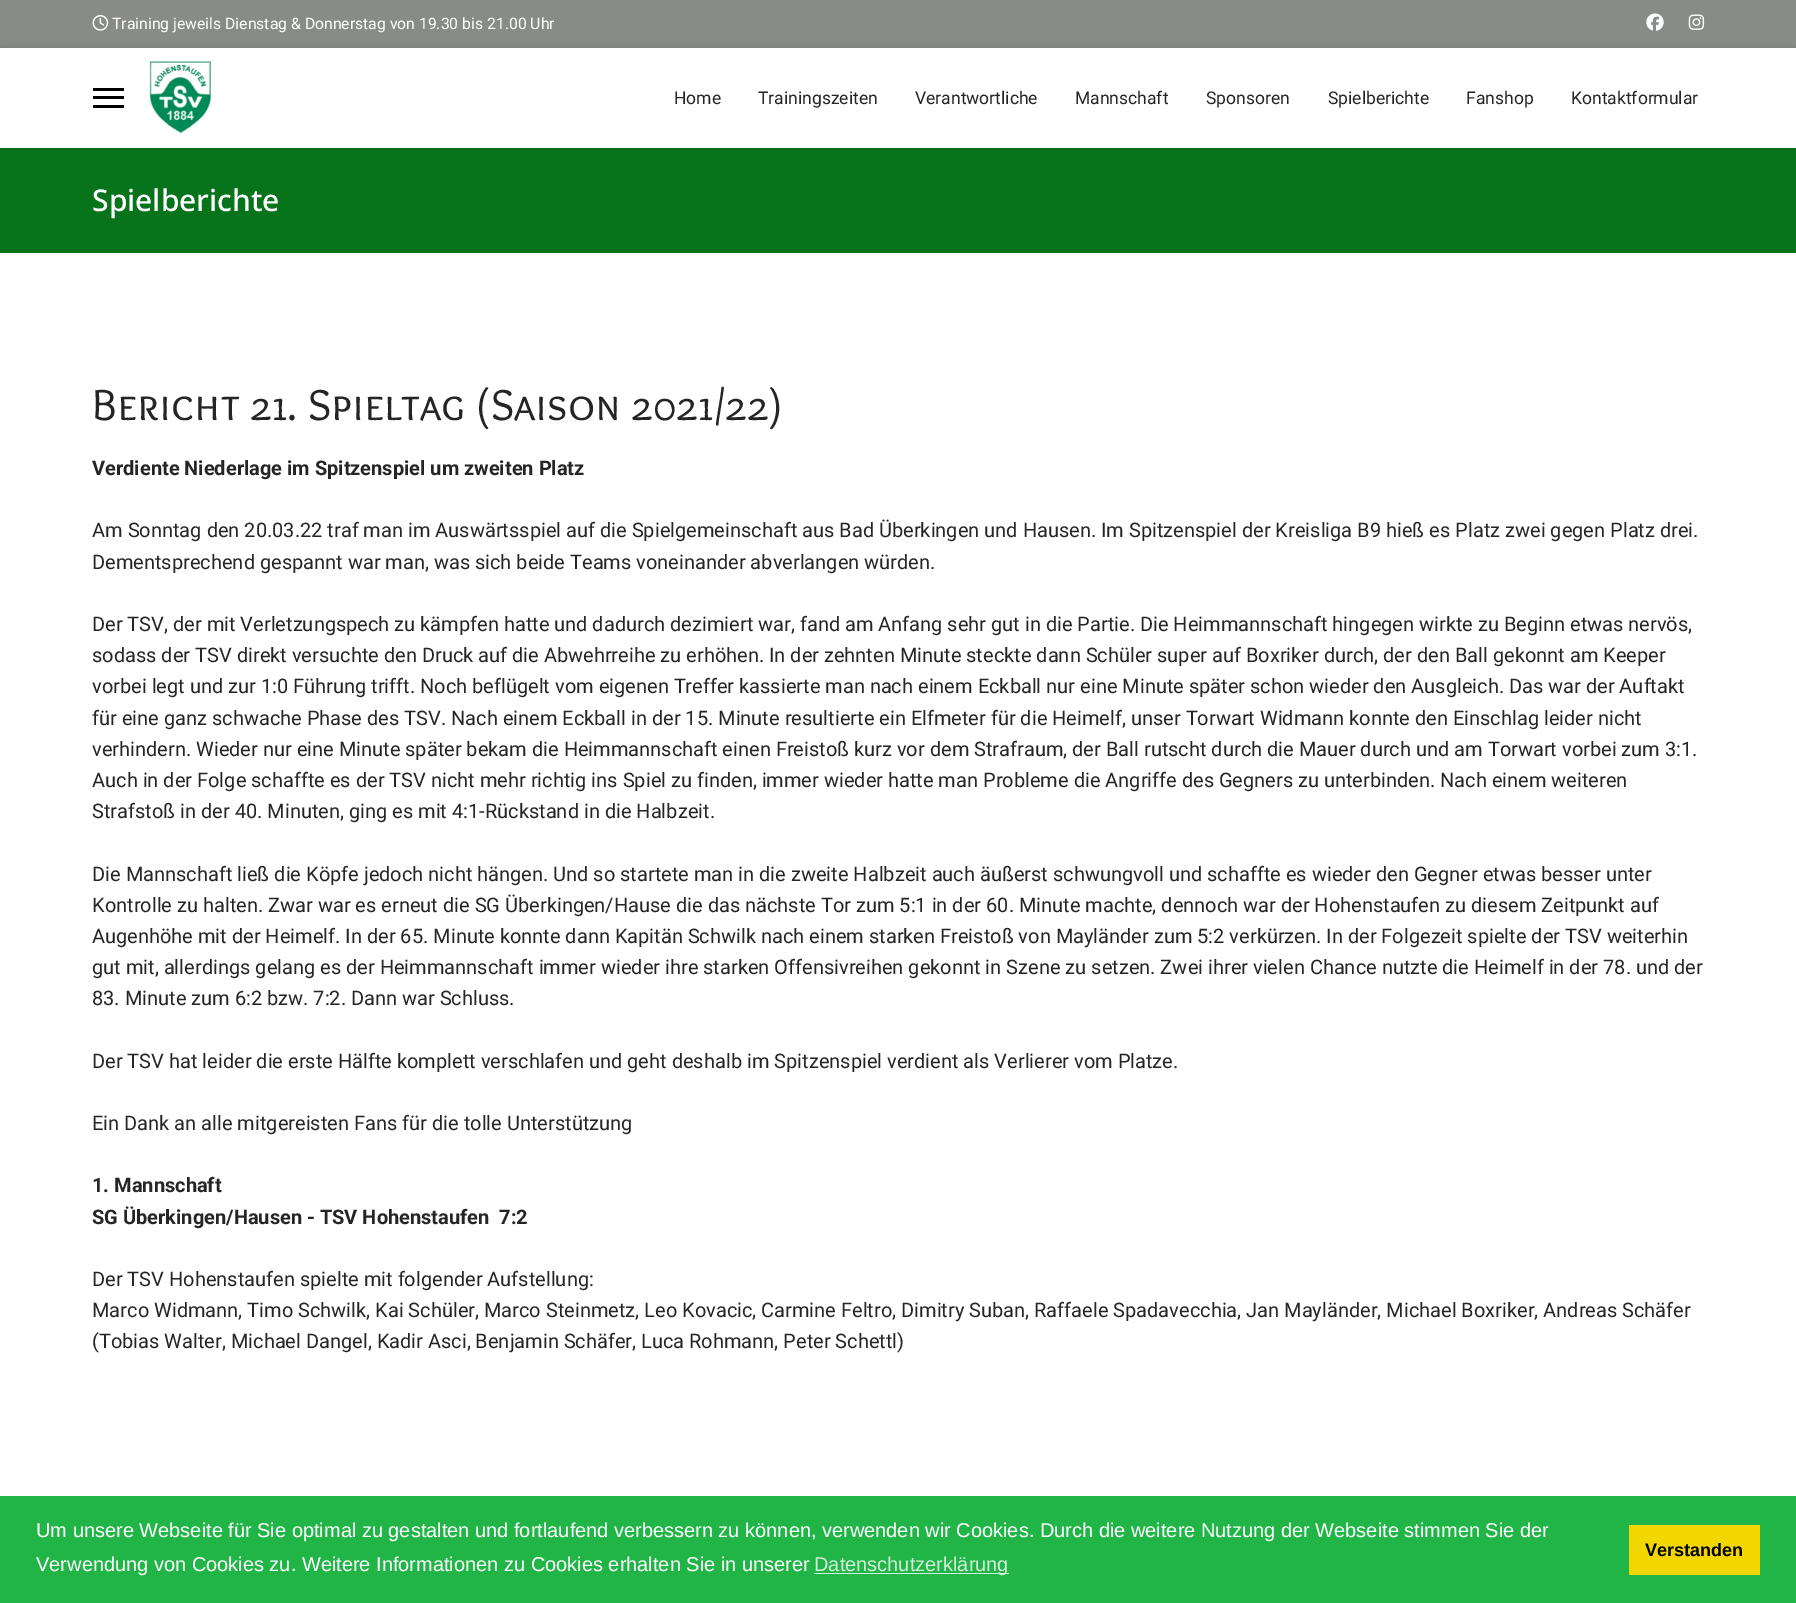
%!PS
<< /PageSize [1796 1603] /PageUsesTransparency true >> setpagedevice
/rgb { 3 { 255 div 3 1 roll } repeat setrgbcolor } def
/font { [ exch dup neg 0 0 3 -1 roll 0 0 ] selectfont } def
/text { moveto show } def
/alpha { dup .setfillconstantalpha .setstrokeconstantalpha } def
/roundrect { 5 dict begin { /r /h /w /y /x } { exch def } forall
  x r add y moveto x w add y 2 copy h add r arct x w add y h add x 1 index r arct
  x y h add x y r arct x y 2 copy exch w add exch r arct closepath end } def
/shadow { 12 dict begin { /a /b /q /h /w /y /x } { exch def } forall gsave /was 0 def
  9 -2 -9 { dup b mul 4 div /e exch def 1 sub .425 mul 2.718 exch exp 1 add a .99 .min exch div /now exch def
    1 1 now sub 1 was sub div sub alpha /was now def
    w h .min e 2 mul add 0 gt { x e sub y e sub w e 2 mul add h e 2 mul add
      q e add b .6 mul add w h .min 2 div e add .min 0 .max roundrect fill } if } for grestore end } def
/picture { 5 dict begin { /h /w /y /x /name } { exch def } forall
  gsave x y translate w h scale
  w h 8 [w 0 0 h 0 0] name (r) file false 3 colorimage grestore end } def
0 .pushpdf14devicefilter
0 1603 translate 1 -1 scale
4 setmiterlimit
255 255 255 rgb
0 0 1796 1603 rectfill
135 140 136 rgb
0 0 1796 48 rectfill
(img_01.rgb) 92 15 17 16 picture
(img_02.rgb) 1646 13 18 18 picture
(img_03.rgb) 1688 14 17 16 picture
7 115 27 rgb
0 148 1796 105 rectfill
0 0 0 rgb
0 48 1796 100 0 2.5 0.1 shadow
255 255 255 rgb
0 48 1796 100 rectfill
0 0 0 rgb
93 88 31 3 rectfill
93 96 31 3 rectfill
93 105 31 3 rectfill
(img_04.rgb) 149 61 62 73 picture
33 181 72 rgb
0 1496 1796 107 rectfill
211 240 218 rgb
814 1573 195 1 rectfill
241 214 0 rgb
1629 1525 131 50 rectfill
/Roboto-Regular 15.75 font
255 255 255 rgb
(Training jeweils Dienstag & Donnerstag von 19.30 bis 21.00 Uhr) 112 29 text
/Roboto-Regular 17.5 font
37 37 37 rgb
(Home) 674 104 text
(Trainingszeiten) 758 104 text
(Verantwortliche) 915 104 text
(Mannschaft) 1075 104 text
(Sponsoren) 1206 104 text
(Spielberichte) 1328 104 text
(Fanshop) 1466 104 text
(Kontaktformular) 1571 104 text
/NotoSans-Medium 30 font
255 255 255 rgb
(Spielberichte) 92 211 text
/OverlockSC-Regular 45 font
37 37 37 rgb
(Bericht 21. Spieltag \(Saison 2021/22\)) 92 420 text
/Roboto-Bold 20 font
(Verdiente Niederlage im Spitzenspiel um zweiten Platz) 92 475 text
/Roboto-Regular 20 font
(Am Sonntag den 20.03.22 traf man im Auswärtsspiel auf die Spielgemeinschaft aus Bad Überkingen und Hausen. Im Spitzenspiel der Kreisliga B9 hieß es Platz zwei gegen Platz drei.) 92 537 text
(Dementsprechend gespannt war man, was sich beide Teams voneinander abverlangen würden.) 92 569 text
(Der TSV, der mit Verletzungspech zu kämpfen hatte und dadurch dezimiert war, fand am Anfang sehr gut in die Partie. Die Heimmannschaft hingegen wirkte zu Beginn etwas nervös,) 92 631 text
(sodass der TSV direkt versuchte den Druck auf die Abwehrreihe zu erhöhen. In der zehnten Minute steckte dann Schüler super auf Boxriker durch, der den Ball gekonnt am Keeper) 92 662 text
(vorbei legt und zur 1:0 Führung trifft. Noch beflügelt vom eigenen Treffer kassierte man nach einem Eckball nur eine Minute später schon wieder den Ausgleich. Das war der Auftakt) 92 693 text
(für eine ganz schwache Phase des TSV. Nach einem Eckball in der 15. Minute resultierte ein Elfmeter für die Heimelf, unser Torwart Widmann konnte den Einschlag leider nicht) 92 725 text
(verhindern. Wieder nur eine Minute später bekam die Heimmannschaft einen Freistoß kurz vor dem Strafraum, der Ball rutscht durch die Mauer durch und am Torwart vorbei zum 3:1.) 92 756 text
(Auch in der Folge schaffte es der TSV nicht mehr richtig ins Spiel zu finden, immer wieder hatte man Probleme die Angriffe des Gegners zu unterbinden. Nach einem weiteren) 92 787 text
(Strafstoß in der 40. Minuten, ging es mit 4:1-Rückstand in die Halbzeit.) 92 818 text
(Die Mannschaft ließ die Köpfe jedoch nicht hängen. Und so startete man in die zweite Halbzeit auch äußerst schwungvoll und schaffte es wieder den Gegner etwas besser unter) 92 881 text
(Kontrolle zu halten. Zwar war es erneut die SG Überkingen/Hause die das nächste Tor zum 5:1 in der 60. Minute machte, dennoch war der Hohenstaufen zu diesem Zeitpunkt auf) 92 912 text
(Augenhöhe mit der Heimelf. In der 65. Minute konnte dann Kapitän Schwilk nach einem starken Freistoß von Mayländer zum 5:2 verkürzen. In der Folgezeit spielte der TSV weiterhin) 92 943 text
(gut mit, allerdings gelang es der Heimmannschaft immer wieder ihre starken Offensivreihen gekonnt in Szene zu setzen. Zwei ihrer vielen Chance nutzte die Heimelf in der 78. und der) 92 974 text
(83. Minute zum 6:2 bzw. 7:2. Dann war Schluss.) 92 1005 text
(Der TSV hat leider die erste Hälfte komplett verschlafen und geht deshalb im Spitzenspiel verdient als Verlierer vom Platze.) 92 1068 text
(Ein Dank an alle mitgereisten Fans für die tolle Unterstützung) 92 1130 text
/Roboto-Bold 20 font
(1. Mannschaft) 92 1192 text
(SG Überkingen/Hausen - TSV Hohenstaufen  7:2) 92 1224 text
/Roboto-Regular 20 font
(Der TSV Hohenstaufen spielte mit folgender Aufstellung:) 92 1286 text
(Marco Widmann, Timo Schwilk, Kai Schüler, Marco Steinmetz, Leo Kovacic, Carmine Feltro, Dimitry Suban, Raffaele Spadavecchia, Jan Mayländer, Michael Boxriker, Andreas Schäfer) 92 1317 text
(\(Tobias Walter, Michael Dangel, Kadir Asci, Benjamin Schäfer, Luca Rohmann, Peter Schettl\)) 92 1348 text
/LiberationSans-Regular 20 font
255 255 255 rgb
(Um unsere Webseite für Sie optimal zu gestalten und fortlaufend verbessern zu können, verwenden wir Cookies. Durch die weitere Nutzung der Webseite stimmen Sie der) 36 1537 text
(Verwendung von Cookies zu. Weitere Informationen zu Cookies erhalten Sie in unserer) 36 1571 text
211 240 218 rgb
(Datenschutzerklärung) 814 1571 text
/LiberationSans-Bold 18 font
0 0 0 rgb
(Verstanden) 1645 1556 text
.poppdf14devicefilter showpage
